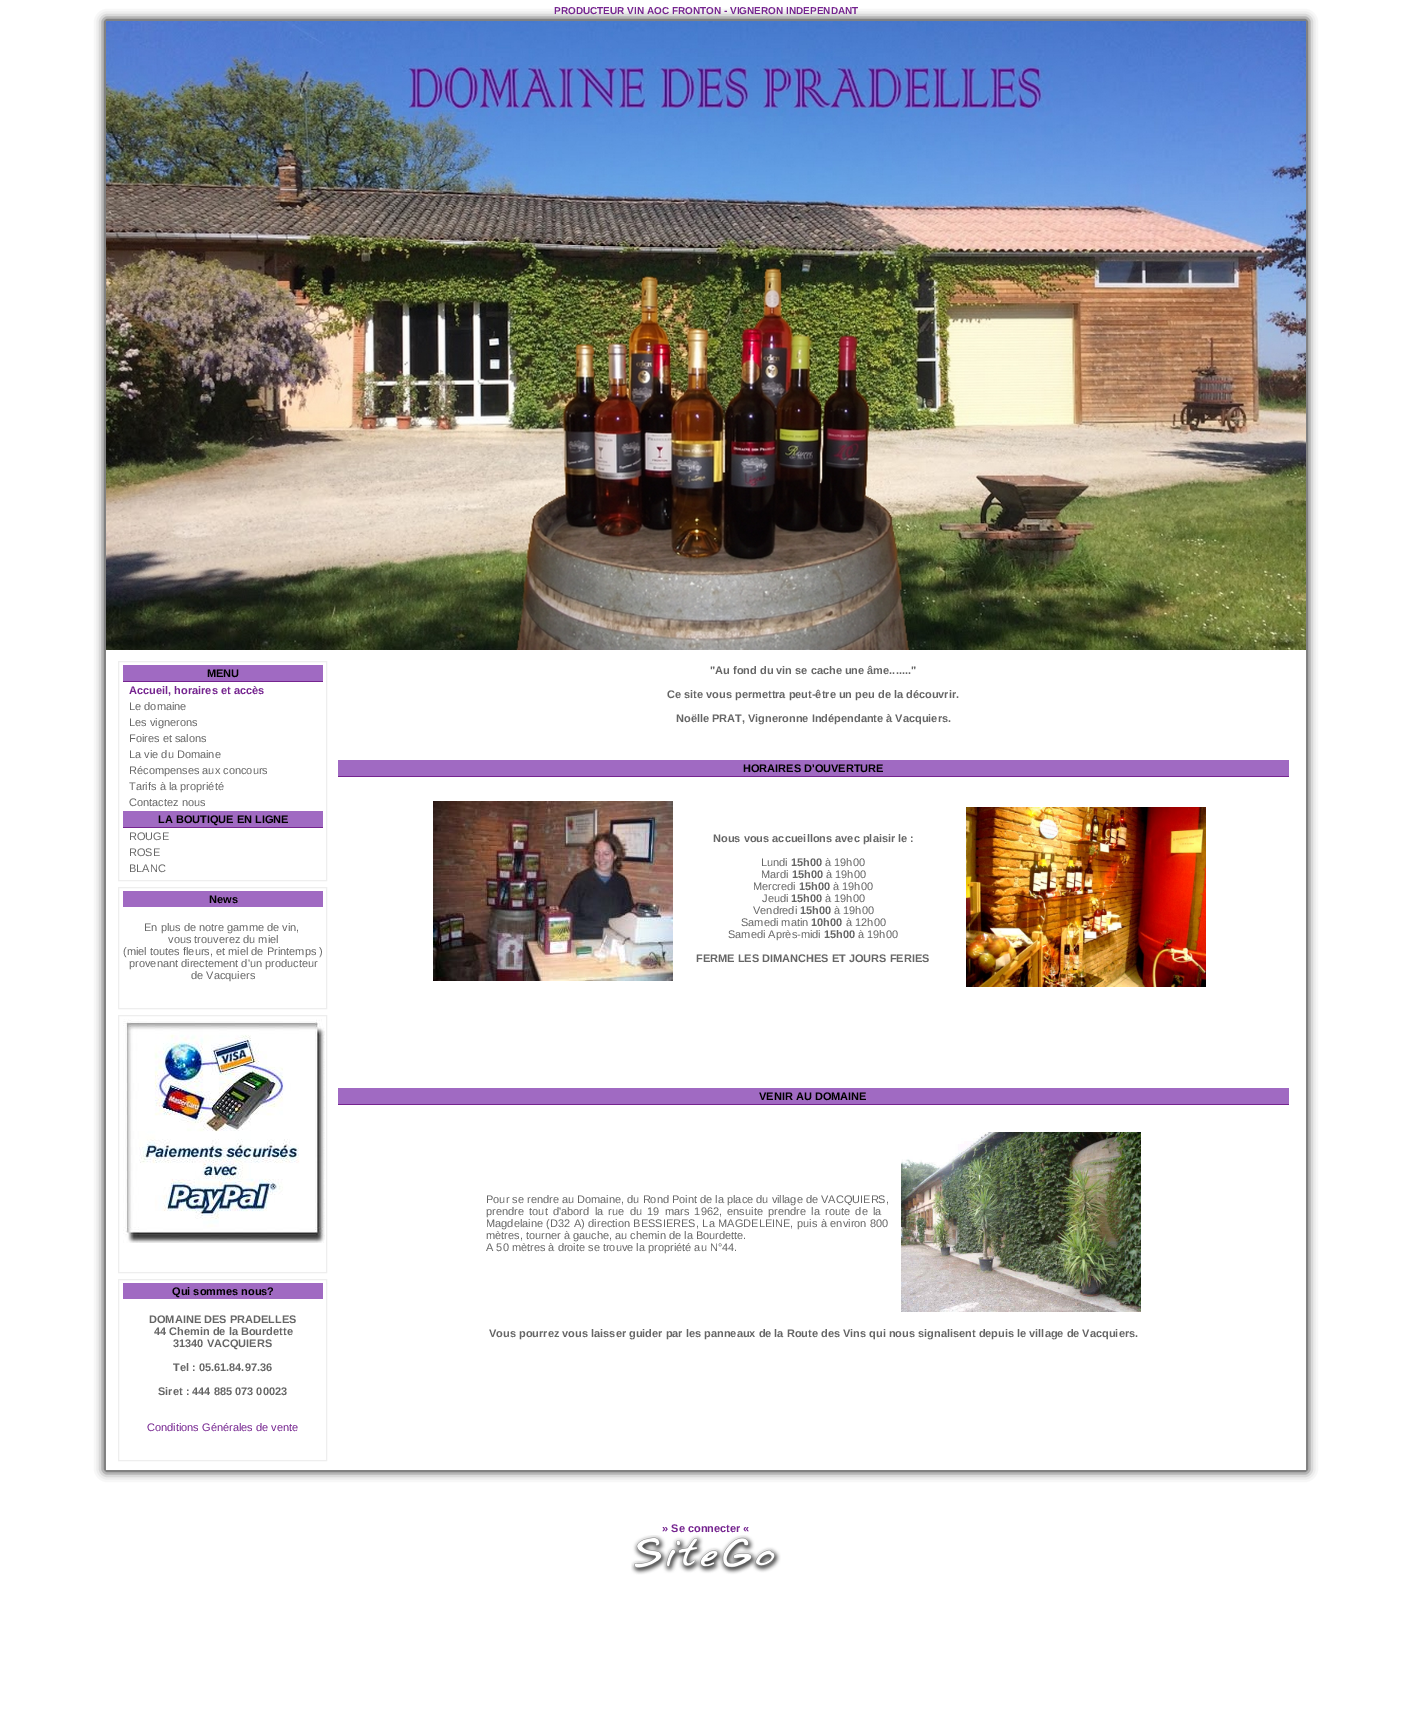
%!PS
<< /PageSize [1412 1714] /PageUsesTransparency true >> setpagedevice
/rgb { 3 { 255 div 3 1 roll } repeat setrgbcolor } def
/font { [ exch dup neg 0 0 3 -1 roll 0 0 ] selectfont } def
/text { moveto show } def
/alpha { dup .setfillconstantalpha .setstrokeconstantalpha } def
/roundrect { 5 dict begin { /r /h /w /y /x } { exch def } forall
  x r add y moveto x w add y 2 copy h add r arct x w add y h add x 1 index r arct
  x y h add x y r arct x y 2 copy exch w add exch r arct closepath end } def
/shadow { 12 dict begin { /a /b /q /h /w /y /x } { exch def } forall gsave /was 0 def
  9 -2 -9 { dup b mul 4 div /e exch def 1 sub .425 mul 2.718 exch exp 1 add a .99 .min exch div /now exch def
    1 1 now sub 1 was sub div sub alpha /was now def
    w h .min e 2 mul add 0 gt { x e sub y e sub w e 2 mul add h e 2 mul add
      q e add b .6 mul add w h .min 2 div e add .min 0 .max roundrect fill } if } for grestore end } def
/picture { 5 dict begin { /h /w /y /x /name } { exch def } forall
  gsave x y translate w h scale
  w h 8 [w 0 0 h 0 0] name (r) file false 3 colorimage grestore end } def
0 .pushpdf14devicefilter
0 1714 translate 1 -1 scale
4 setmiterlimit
255 255 255 rgb
0 0 1412 1714 rectfill
gsave
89 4 moveto 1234 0 rlineto 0 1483 rlineto -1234 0 rlineto closepath 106 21 moveto 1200 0 rlineto 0 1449 rlineto -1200 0 rlineto closepath eoclip newpath
0 0 0 rgb
105 20 1202 1451 0 5 1 shadow
grestore
(img_01.rgb) 106 21 1200 629 picture
238 238 238 rgb
118.5 661.5 208 219 rectstroke
160 106 194 rgb
123 665 200 16 rectfill
117 36 143 rgb
123 681 200 1 rectfill
160 106 194 rgb
123 811 200 16 rectfill
117 36 143 rgb
123 827 200 1 rectfill
238 238 238 rgb
118.5 887.5 208 121 rectstroke
160 106 194 rgb
123 891 200 16 rectfill
238 238 238 rgb
118.5 1015.5 208 257 rectstroke
(img_02.rgb) 123 1019 202 224 picture
118.5 1279.5 208 181 rectstroke
160 106 194 rgb
123 1283 200 16 rectfill
338 760 951 16 rectfill
117 36 143 rgb
338 776 951 1 rectfill
(img_03.rgb) 433 801 240 180 picture
(img_04.rgb) 966 807 240 180 picture
160 106 194 rgb
338 1088 951 16 rectfill
117 36 143 rgb
338 1104 951 1 rectfill
(img_05.rgb) 901 1132 240 180 picture
(img_06.rgb) 631 1535 150 40 picture
/LiberationSans-Bold 10 font
(PRODUCTEUR VIN AOC FRONTON - VIGNERON INDEPENDANT) 554 14 text
/LiberationSans-Bold 11 font
0 0 0 rgb
(MENU) 207 677 text
117 36 143 rgb
(Accueil, horaires et accès) 129 694 text
/LiberationSans-Regular 11 font
102 102 102 rgb
(Le domaine) 129 710 text
(Les vignerons) 129 726 text
(Foires et salons) 129 742 text
(La vie du Domaine) 129 758 text
(Récompenses aux concours) 129 774 text
(Tarifs à la propriété) 129 790 text
(Contactez nous) 129 806 text
/LiberationSans-Bold 11 font
0 0 0 rgb
(LA BOUTIQUE EN LIGNE) 158 823 text
/LiberationSans-Regular 11 font
102 102 102 rgb
(ROUGE) 129 840 text
(ROSE) 129 856 text
(BLANC) 129 872 text
/LiberationSans-Bold 11 font
0 0 0 rgb
(News) 209 903 text
/LiberationSans-Regular 11 font
102 102 102 rgb
(En plus de notre gamme de vin,) 144 931 text
(vous trouverez du miel) 168 943 text
(\(miel toutes fleurs, et miel de Printemps \)) 123 955 text
(provenant directement d'un producteur) 129 967 text
(de Vacquiers) 191 979 text
/LiberationSans-Bold 11 font
0 0 0 rgb
(Qui sommes nous?) 172 1295 text
102 102 102 rgb
(DOMAINE DES PRADELLES) 149 1323 text
(44 Chemin de la Bourdette) 154 1335 text
(31340 VACQUIERS) 173 1347 text
(Tel : 05.61.84.97.36) 173 1371 text
(Siret : 444 885 073 00023) 158 1395 text
/LiberationSans-Regular 11 font
117 36 143 rgb
(Conditions Générales de vente) 147 1431 text
/LiberationSans-Bold 11 font
102 102 102 rgb
("Au fond du vin se cache une âme.......") 710 674 text
(Ce site vous permettra peut-être un peu de la découvrir.) 667 698 text
(Noëlle PRAT, Vigneronne Indépendante à Vacquiers.) 676 722 text
0 0 0 rgb
(HORAIRES D'OUVERTURE) 743 772 text
102 102 102 rgb
(Nous vous accueillons avec plaisir le :) 713 842 text
/LiberationSans-Regular 11 font
(Lundi) 761 866 text
/LiberationSans-Bold 11 font
(15h00) 791 866 text
/LiberationSans-Regular 11 font
(à 19h00) 825 866 text
(Mardi) 761 878 text
/LiberationSans-Bold 11 font
(15h00) 792 878 text
/LiberationSans-Regular 11 font
(à 19h00) 826 878 text
(Mercredi) 753 890 text
/LiberationSans-Bold 11 font
(15h00) 799 890 text
/LiberationSans-Regular 11 font
(à 19h00) 833 890 text
(Jeudi) 762 902 text
/LiberationSans-Bold 11 font
(15h00) 791 902 text
/LiberationSans-Regular 11 font
(à 19h00) 825 902 text
(Vendredi) 753 914 text
/LiberationSans-Bold 11 font
(15h00) 800 914 text
/LiberationSans-Regular 11 font
(à 19h00) 834 914 text
(Samedi matin) 741 926 text
/LiberationSans-Bold 11 font
(10h00) 811 926 text
/LiberationSans-Regular 11 font
(à 12h00) 846 926 text
(Samedi Après-midi) 728 938 text
/LiberationSans-Bold 11 font
(15h00) 824 938 text
/LiberationSans-Regular 11 font
(à 19h00) 858 938 text
/LiberationSans-Bold 11 font
(FERME LES DIMANCHES ET JOURS FERIES) 696 962 text
0 0 0 rgb
(VENIR AU DOMAINE) 759 1100 text
/LiberationSans-Regular 11 font
102 102 102 rgb
(Pour se rendre au Domaine, du Rond Point de la place du village de VACQUIERS,) 486 1203 text
486 1215 moveto 2.25 0 32 (prendre tout d'abord la rue du 19 mars 1962, ensuite prendre la route de la) widthshow
486 1227 moveto 0.5 0 32 (Magdelaine \(D32 A\) direction BESSIERES, La MAGDELEINE, puis à environ 800) widthshow
(mètres, tourner à gauche, au chemin de la Bourdette.) 486 1239 text
(A 50 mètres à droite se trouve la propriété au N°44.) 486 1251 text
/LiberationSans-Bold 11 font
(Vous pourrez vous laisser guider par les panneaux de la Route des Vins qui nous signalisent depuis le village de Vacquiers.) 489 1337 text
117 36 143 rgb
(» Se connecter «) 662 1532 text
.poppdf14devicefilter showpage
